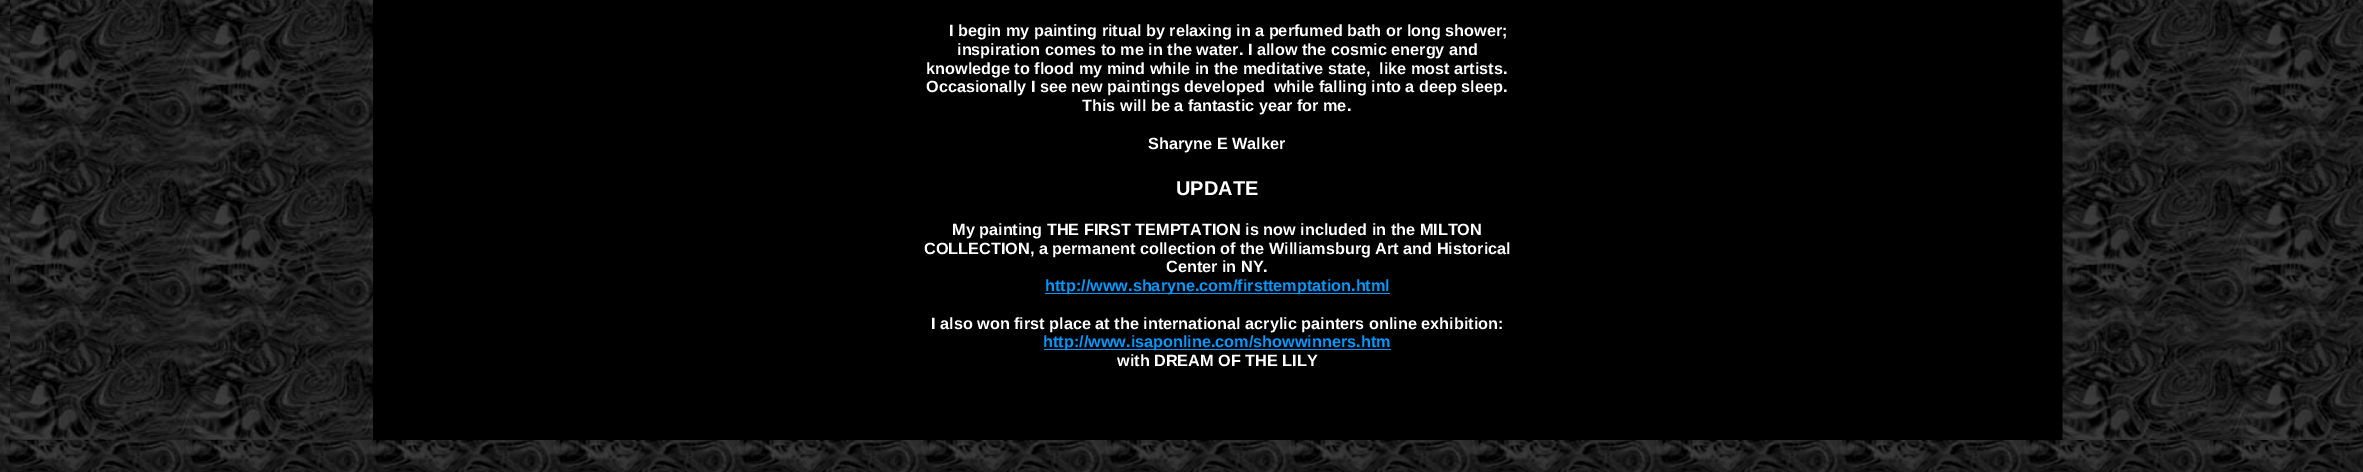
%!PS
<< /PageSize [2363 472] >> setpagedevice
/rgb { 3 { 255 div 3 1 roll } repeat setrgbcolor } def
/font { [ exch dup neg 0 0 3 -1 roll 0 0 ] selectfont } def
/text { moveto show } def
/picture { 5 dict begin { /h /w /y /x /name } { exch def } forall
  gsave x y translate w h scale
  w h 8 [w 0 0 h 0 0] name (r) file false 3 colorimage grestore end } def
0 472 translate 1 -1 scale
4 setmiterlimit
255 255 255 rgb
0 0 2363 472 rectfill
(img_01.rgb) 0 0 2363 472 picture
(img_02.rgb) 10 0 2353 440 picture
0 0 0 rgb
373 0 1690 440 rectfill
0 153 255 rgb
1045 293 345 1 rectfill
1044 349 347 1 rectfill
(img_03.rgb) 2062 0 301 440 picture
/LiberationSans-Bold 16.25 font
255 255 255 rgb
(I begin my painting ritual by relaxing in a perfumed bath or long shower;) 949 36 text
(inspiration comes to me in the water. I allow the cosmic energy and) 957 55 text
(knowledge to flood my mind while in the meditative state,  like most artists.) 926 74 text
(Occasionally I see new paintings developed  while falling into a deep sleep.) 926 92 text
(This will be a fantastic year for me.) 1082 111 text
(Sharyne E Walker) 1148 149 text
/LiberationSans-Bold 20 font
(UPDATE) 1176 195 text
/LiberationSans-Bold 16.25 font
(My painting THE FIRST TEMPTATION is now included in the MILTON) 952 235 text
(COLLECTION, a permanent collection of the Williamsburg Art and Historical) 924 254 text
(Center in NY.) 1166 272 text
0 153 255 rgb
(http://www.sharyne.com/firsttemptation.html) 1045 291 text
255 255 255 rgb
(I also won first place at the international acrylic painters online exhibition:) 931 329 text
0 153 255 rgb
(http://www.isaponline.com/showwinners.htm) 1043 347 text
255 255 255 rgb
(with DREAM OF THE LILY) 1117 366 text
showpage
